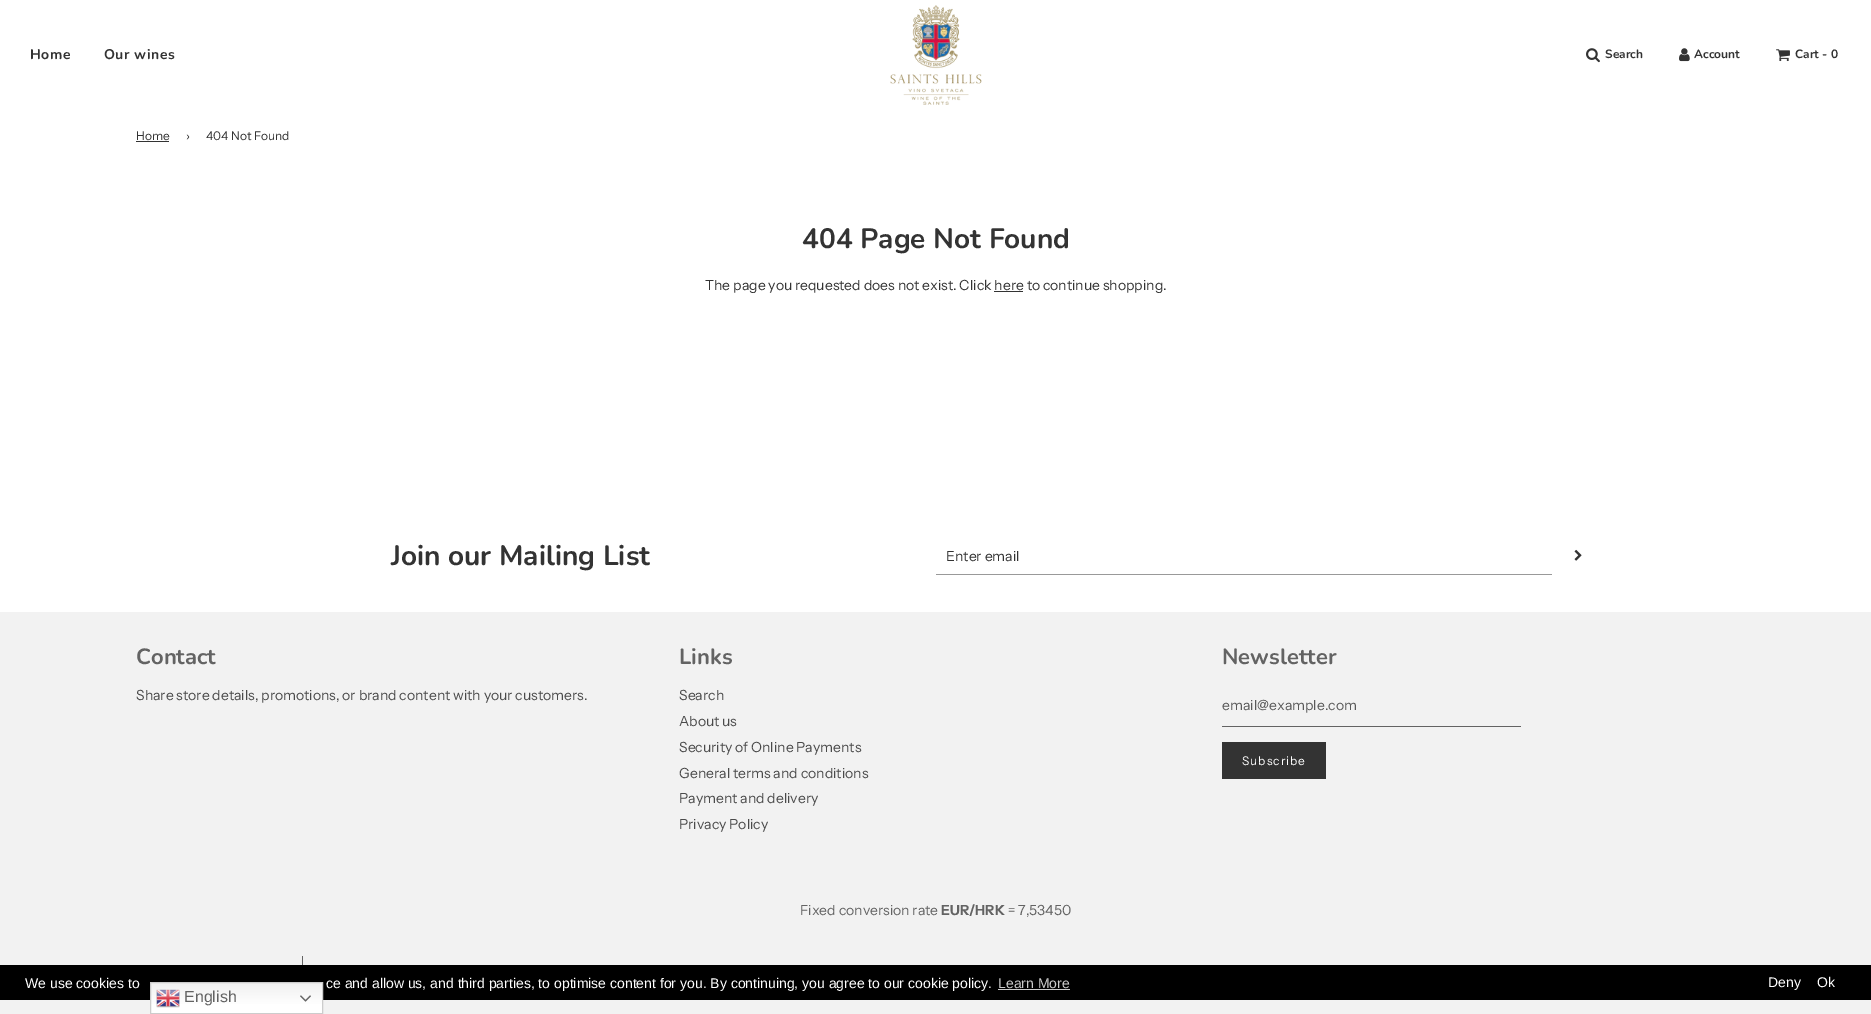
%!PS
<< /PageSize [1871 1014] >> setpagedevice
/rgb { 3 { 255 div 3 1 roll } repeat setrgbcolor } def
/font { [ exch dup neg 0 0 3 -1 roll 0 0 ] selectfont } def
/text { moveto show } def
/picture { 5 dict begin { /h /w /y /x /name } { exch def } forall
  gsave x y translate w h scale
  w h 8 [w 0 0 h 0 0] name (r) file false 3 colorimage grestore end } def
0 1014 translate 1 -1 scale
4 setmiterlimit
255 255 255 rgb
0 0 1871 1014 rectfill
(img_01.rgb) 890 5 92 100 picture
(img_02.rgb) 1586 48 14 15 picture
(img_03.rgb) 1679 48 11 14 picture
(img_04.rgb) 1776 49 14 13 picture
51 51 51 rgb
136 141 33 1 rectfill
994 291 29 1 rectfill
153 153 153 rgb
936 574 616 1 rectfill
(img_05.rgb) 1574 549 8 12 picture
242 242 242 rgb
0 612 1871 402 rectfill
99 99 99 rgb
1222 726 299 1 rectfill
51 51 51 rgb
1222 742 104 37 rectfill
99 99 99 rgb
302 956 1 14 rectfill
0 0 0 rgb
0 965 1871 35 rectfill
204 204 204 rgb
998 989 72 1 rectfill
gsave 151 983 moveto 171 0 rlineto 0 30 rlineto -171 0 rlineto closepath clip newpath
<< /ShadingType 2 /ColorSpace /DeviceRGB /Coords [237 982 237 1014] /Extend [true true] /Function << /FunctionType 3 /Domain [0 1] /Functions [<< /FunctionType 2 /Domain [0 1] /C0 [0.937 0.937 0.937] /C1 [1 1 1] /N 1 >> << /FunctionType 2 /Domain [0 1] /C0 [1 1 1] /C1 [1 1 1] /N 1 >>] /Bounds [0.7] /Encode [0 1 0 1] >> >> shfill grestore
150.5 982.5 172 31 rectstroke
(img_06.rgb) 156 989 24 19 picture
(img_07.rgb) 300 995 11 7 picture
/Nunito-Bold 14 font
51 51 51 rgb
30 59 moveto 0.5 0 (Home) ashow
104 59 moveto 0.5 0 (Our wines) ashow
/Nunito-Bold 12 font
(Search) 1605 58 text
(Account) 1694 58 text
(Cart - 0) 1795 58 text
/InstrumentSans-Regular 12 font
(Home) 136 140 text
(›) 186 140 text
(404 Not Found) 206 140 text
/Nunito-Bold 28 font
(404 Page Not Found) 802 248 text
/InstrumentSans-Regular 14 font
(The page you requested does not exist. Click here to continue shopping.) 705 290 text
/Nunito-Bold 28 font
(Join our Mailing List) 391 565 text
/InstrumentSans-Regular 14 font
(Enter email) 946 561 text
/Nunito-Bold 22 font
99 99 99 rgb
(Contact) 136 664 text
/InstrumentSans-Regular 14 font
74 74 74 rgb
(Share store details, promotions, or brand content with your customers.) 136 700 text
/Nunito-Bold 22 font
99 99 99 rgb
(Links) 679 664 text
/InstrumentSans-Regular 14 font
74 74 74 rgb
(Search) 679 700 text
(About us) 679 726 text
(Security of Online Payments) 679 752 text
(General terms and conditions) 679 778 text
(Payment and delivery) 679 803 text
(Privacy Policy) 679 829 text
/Nunito-Bold 22 font
99 99 99 rgb
(Newsletter) 1222 664 text
/InstrumentSans-Regular 14 font
89 89 89 rgb
(email@example.com) 1222 710 text
/InstrumentSans-Regular 12 font
255 255 255 rgb
1242 765 moveto 1 0 (Subscribe) ashow
/InstrumentSans-Regular 14 font
99 99 99 rgb
(Fixed conversion rate) 800 915 text
/InstrumentSans-Bold 14 font
(EUR/HRK) 941 915 text
/InstrumentSans-Regular 14 font
(= 7,53450) 1008 915 text
/LiberationSans-Regular 14 font
255 255 255 rgb
(We use cookies to) 25 988 text
(ce and allow us, and third parties, to optimise content for you. By continuing, you agree to our cookie policy.) 326 988 text
204 204 204 rgb
(Learn More) 998 988 text
255 255 255 rgb
(Deny) 1768 987 text
(Ok) 1817 987 text
/LiberationSans-Regular 16 font
99 99 99 rgb
(English) 184 1002 text
showpage
